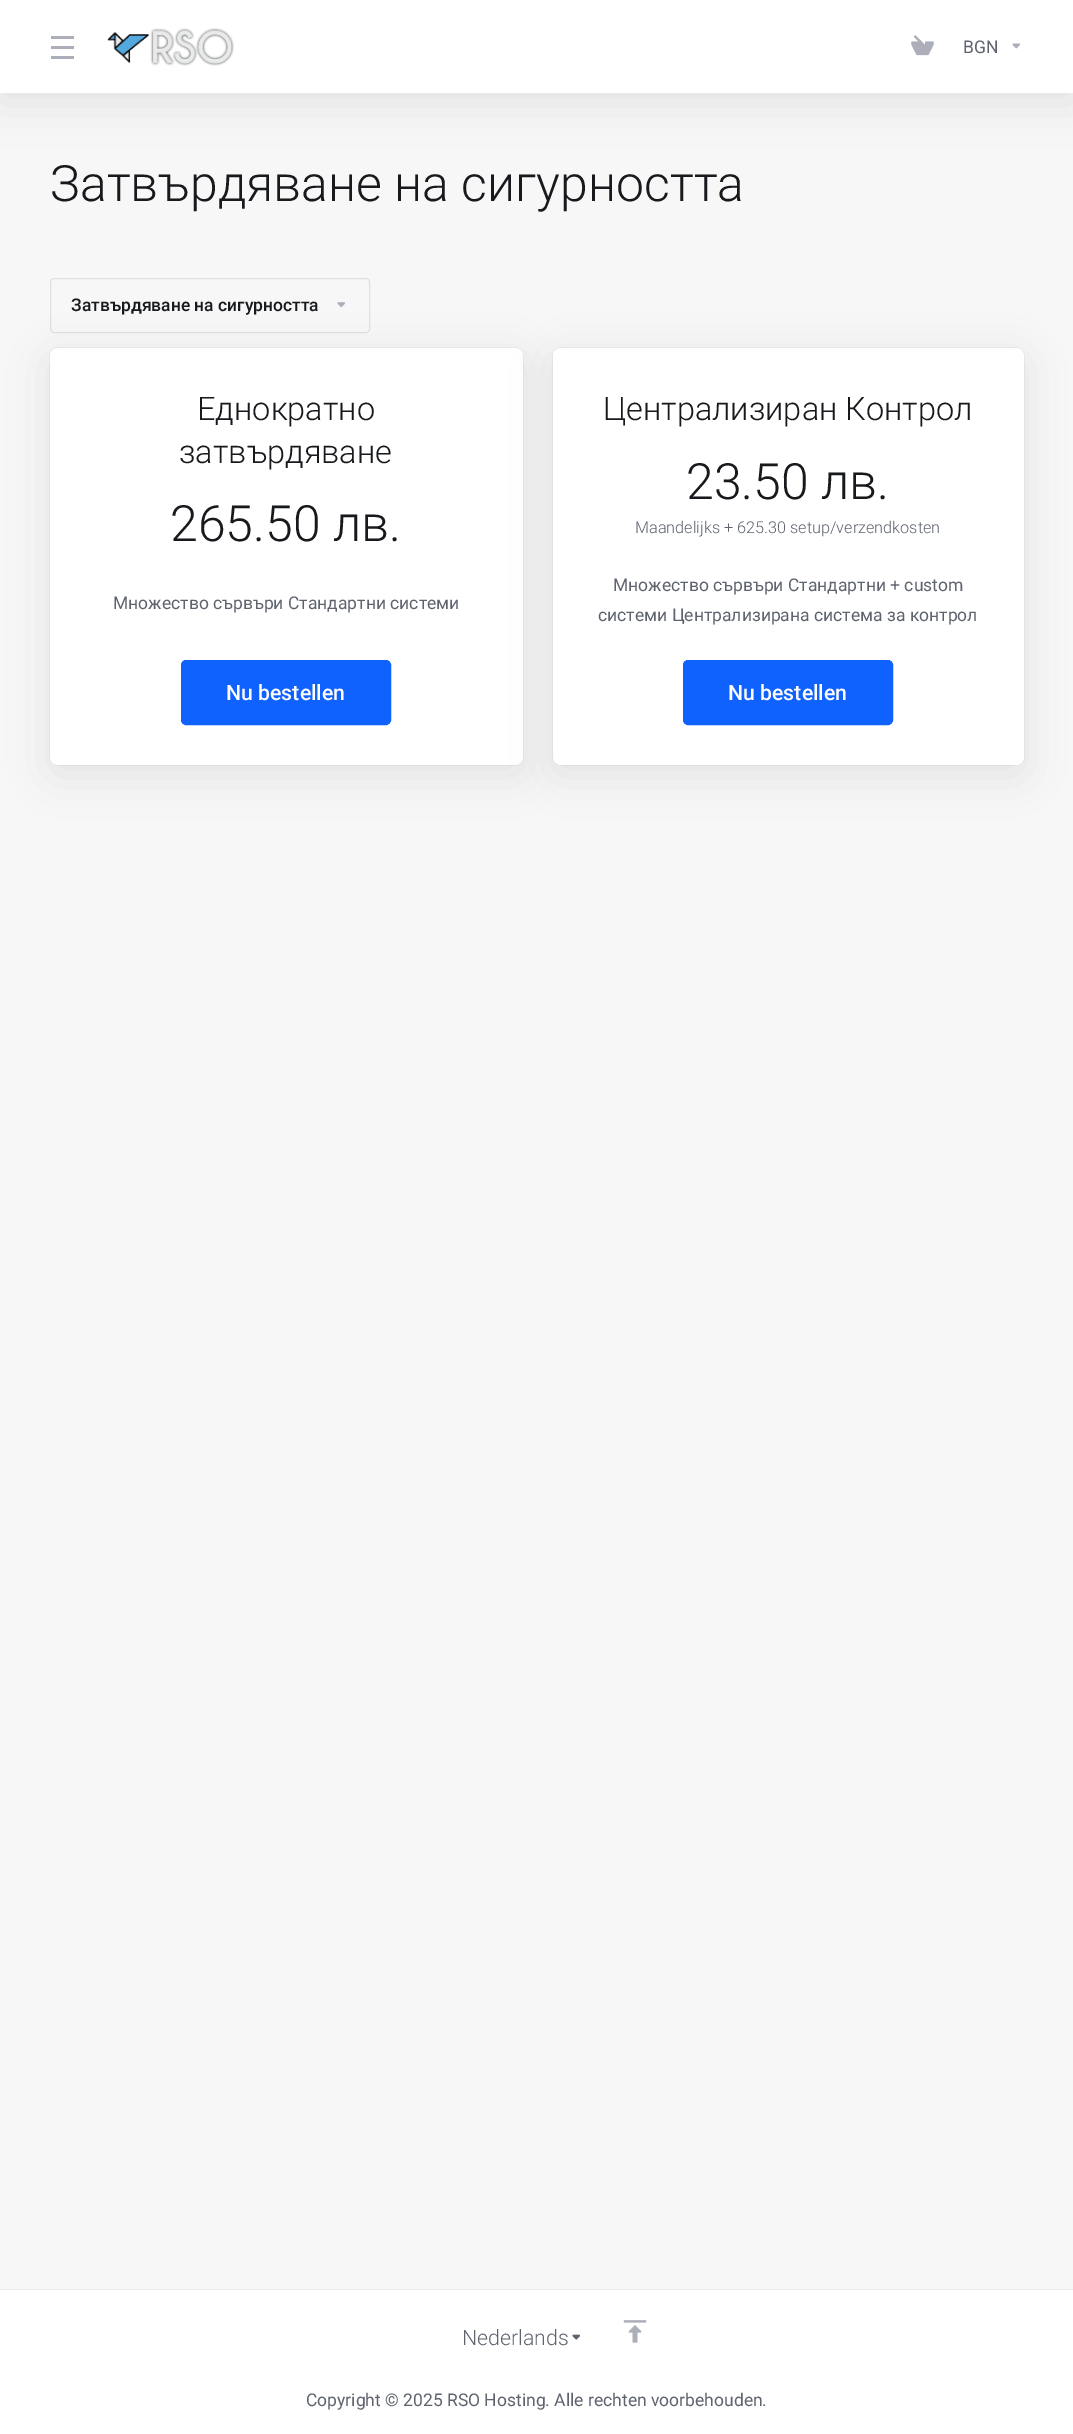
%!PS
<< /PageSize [1073 2434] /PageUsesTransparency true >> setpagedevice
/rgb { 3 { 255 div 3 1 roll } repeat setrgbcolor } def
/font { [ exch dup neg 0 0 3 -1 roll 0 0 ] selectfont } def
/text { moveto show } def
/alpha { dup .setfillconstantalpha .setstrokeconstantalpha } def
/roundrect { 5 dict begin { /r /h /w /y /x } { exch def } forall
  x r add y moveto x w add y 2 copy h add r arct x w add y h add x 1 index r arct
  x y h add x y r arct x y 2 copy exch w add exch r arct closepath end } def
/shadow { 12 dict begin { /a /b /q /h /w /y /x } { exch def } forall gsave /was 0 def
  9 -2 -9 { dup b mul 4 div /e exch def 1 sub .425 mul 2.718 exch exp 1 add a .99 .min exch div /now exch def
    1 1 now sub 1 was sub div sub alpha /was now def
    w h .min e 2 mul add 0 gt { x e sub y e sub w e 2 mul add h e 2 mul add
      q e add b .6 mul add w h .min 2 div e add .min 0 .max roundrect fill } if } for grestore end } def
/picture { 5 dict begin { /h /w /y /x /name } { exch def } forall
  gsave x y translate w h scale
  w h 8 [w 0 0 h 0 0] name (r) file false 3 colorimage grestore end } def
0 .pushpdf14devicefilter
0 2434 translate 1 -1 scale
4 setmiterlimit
247 247 248 rgb
0 0 1073 2434 rectfill
0 0 0 rgb
0 10 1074 93 0 20 0.08 shadow
255 255 255 rgb
0 0 1073 93 rectfill
172 175 185 rgb
51 36 23 3 rectfill
51 46 23 3 rectfill
51 56 23 3 rectfill
(img_01.rgb) 107 28 127 38 picture
(img_02.rgb) 911 35 23 21 picture
(img_03.rgb) 1012 43 8 6 picture
222 224 227 rgb
50.5 278.5 319 54 3.5 roundrect stroke
(img_04.rgb) 337 302 8 6 picture
0 0 0 rgb
50 358 473 417 8 20 0.08 shadow
50 348 473 417 8 0.5 0.12 shadow
255 255 255 rgb
50 348 473 417 8 roundrect fill
16 98 254 rgb
181.5 660.5 209 64 4.5 roundrect gsave fill grestore
stroke
0 0 0 rgb
553 358 471 417 8 20 0.08 shadow
553 348 471 417 8 0.5 0.12 shadow
255 255 255 rgb
553 348 471 417 8 roundrect fill
16 98 254 rgb
683.5 660.5 209 64 4.5 roundrect gsave fill grestore
stroke
255 255 255 rgb
0 2290 1073 144 rectfill
233 234 236 rgb
0 2289 1073 1 rectfill
(img_05.rgb) 572 2334 8 6 picture
(img_06.rgb) 623 2320 24 23 picture
/Roboto-Regular 17.5 font
94 99 110 rgb
(BGN) 963 53 text
/Roboto-Light 50 font
23 25 28 rgb
(Затвърдяване на сигурността) 50 201 text
/Roboto-Medium 17.5 font
(Затвърдяване на сигурността) 71 311 text
/Roboto-Light 32.5 font
(Еднократно) 197 420 text
(затвърдяване) 179 463 text
/Roboto-Light 50 font
(265.50 лв.) 170 541 text
/Roboto-Regular 17.5 font
94 99 110 rgb
(Множество сървъри Стандартни системи) 113 609 text
/Roboto-Medium 21.25 font
255 255 255 rgb
(Nu bestellen) 226 700 text
/Roboto-Light 32.5 font
23 25 28 rgb
(Централизиран Контрол) 603 420 text
/Roboto-Light 50 font
(23.50 лв.) 686 499 text
/Roboto-Light 16.25 font
94 99 110 rgb
(Maandelijks + 625.30 setup/verzendkosten) 635 533 text
/Roboto-Regular 17.5 font
(Множество сървъри Стандартни + custom) 613 591 text
(системи Централизирана система за контрол) 598 621 text
/Roboto-Medium 21.25 font
255 255 255 rgb
(Nu bestellen) 728 700 text
/Roboto-Light 21.25 font
94 99 110 rgb
(Nederlands) 462 2345 text
/Roboto-Regular 17.5 font
(Copyright © 2025 RSO Hosting. Alle rechten voorbehouden.) 306 2406 text
.poppdf14devicefilter showpage
